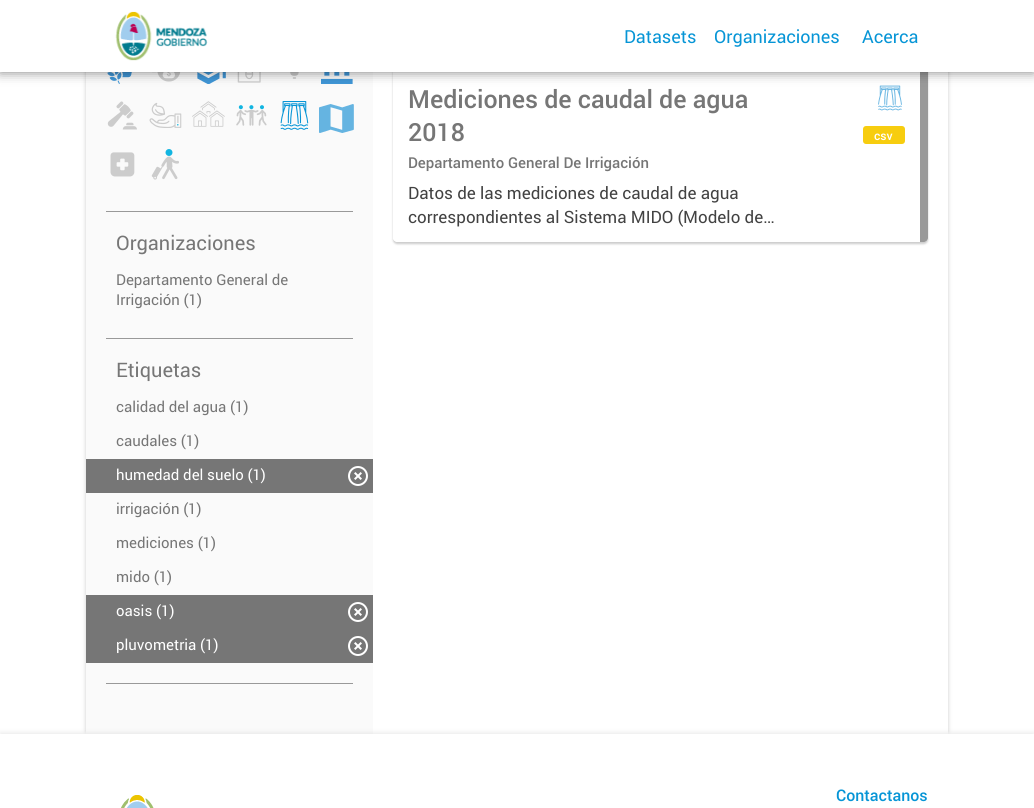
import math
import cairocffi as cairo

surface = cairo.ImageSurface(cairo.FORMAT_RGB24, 1034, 808)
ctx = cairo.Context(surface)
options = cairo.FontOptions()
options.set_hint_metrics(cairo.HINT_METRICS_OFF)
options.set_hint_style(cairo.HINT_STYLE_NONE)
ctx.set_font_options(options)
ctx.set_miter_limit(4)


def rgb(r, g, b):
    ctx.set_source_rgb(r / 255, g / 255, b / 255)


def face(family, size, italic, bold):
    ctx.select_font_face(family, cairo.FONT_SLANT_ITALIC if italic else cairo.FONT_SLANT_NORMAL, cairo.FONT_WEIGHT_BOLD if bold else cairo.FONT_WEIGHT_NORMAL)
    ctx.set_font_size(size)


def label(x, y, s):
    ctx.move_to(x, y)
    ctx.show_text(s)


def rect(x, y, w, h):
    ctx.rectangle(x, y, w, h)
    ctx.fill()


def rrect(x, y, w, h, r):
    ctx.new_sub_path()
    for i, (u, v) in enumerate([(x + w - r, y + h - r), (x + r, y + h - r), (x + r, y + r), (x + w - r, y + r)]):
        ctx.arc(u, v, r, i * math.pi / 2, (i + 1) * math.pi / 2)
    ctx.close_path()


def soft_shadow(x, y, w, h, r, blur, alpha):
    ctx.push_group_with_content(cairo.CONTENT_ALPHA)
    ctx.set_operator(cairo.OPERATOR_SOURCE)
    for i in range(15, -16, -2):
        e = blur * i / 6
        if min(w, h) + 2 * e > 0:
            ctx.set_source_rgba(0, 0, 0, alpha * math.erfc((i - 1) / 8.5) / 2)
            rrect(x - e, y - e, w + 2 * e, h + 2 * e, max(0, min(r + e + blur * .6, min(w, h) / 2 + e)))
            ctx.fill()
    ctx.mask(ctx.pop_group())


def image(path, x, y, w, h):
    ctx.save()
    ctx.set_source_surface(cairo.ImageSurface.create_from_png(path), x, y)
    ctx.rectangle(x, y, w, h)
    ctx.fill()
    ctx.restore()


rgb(255, 255, 255)
ctx.paint()
ctx.save()
ctx.set_fill_rule(cairo.FILL_RULE_EVEN_ODD)
ctx.new_path()
ctx.move_to(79, 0)
ctx.line_to(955, 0)
ctx.line_to(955, 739)
ctx.line_to(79, 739)
ctx.close_path()
ctx.move_to(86, -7)
ctx.line_to(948, -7)
ctx.line_to(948, 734)
ctx.line_to(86, 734)
ctx.close_path()
ctx.clip()
rgb(150, 150, 150)
soft_shadow(86, -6, 862, 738, 0, 2, 0.5)
ctx.restore()
ctx.save()
ctx.set_fill_rule(cairo.FILL_RULE_EVEN_ODD)
ctx.new_path()
ctx.move_to(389, 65)
ctx.line_to(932, 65)
ctx.line_to(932, 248)
ctx.line_to(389, 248)
ctx.close_path()
ctx.move_to(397, 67)
ctx.line_to(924, 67)
ctx.curve_to(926, 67, 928, 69, 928, 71)
ctx.line_to(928, 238)
ctx.curve_to(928, 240, 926, 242, 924, 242)
ctx.line_to(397, 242)
ctx.curve_to(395, 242, 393, 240, 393, 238)
ctx.line_to(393, 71)
ctx.curve_to(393, 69, 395, 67, 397, 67)
ctx.close_path()
ctx.clip()
rgb(0, 0, 0)
soft_shadow(393, 69, 535, 175, 4, 1, 0.2)
ctx.restore()
rgb(153, 153, 153)
ctx.new_path()
ctx.move_to(920, 68)
ctx.line_to(920, 242)
ctx.line_to(924, 242)
ctx.curve_to(926, 242, 928, 240, 928, 238)
ctx.line_to(928, 71)
ctx.curve_to(928, 69, 926, 68, 924, 68)
ctx.close_path()
ctx.fill()
image('image1.png', 878, 85, 24, 26)
rgb(250, 250, 250)
rect(86, 72, 287, 662)
image('image2.png', 107, 72, 25, 12)
image('image3.png', 152, 72, 29, 10)
image('image4.png', 197, 72, 29, 12)
image('image5.png', 237, 72, 24, 11)
image('image6.png', 290, 72, 9, 7)
image('image7.png', 321, 72, 32, 12)
rgb(0, 0, 0)
soft_shadow(0, 0, 1034, 72, 0, 6, 0.5)
rgb(255, 255, 255)
rect(0, 0, 1034, 72)
image('image0.png', 115, 11, 93, 50)
face('Roboto', 18, 0, 0)
rgb(6, 149, 214)
label(624, 43, 'Datasets')
label(714, 43, 'Organizaciones')
label(862, 43, 'Acerca')
face('Roboto Medium', 25, 0, 0)
rgb(118, 118, 118)
label(408, 108, 'Mediciones de caudal de agua')
label(408, 141, '2018')
face('Roboto Medium', 15, 0, 0)
label(408, 168, 'Departamento General De Irrigación')
face('Roboto', 17, 0, 0)
rgb(66, 66, 66)
label(408, 199, 'Datos de las mediciones de caudal de agua')
label(408, 223, 'correspondientes al Sistema MIDO (Modelo de…')
rgb(247, 205, 15)
rrect(863, 126, 42, 18, 3)
ctx.fill()
face('Roboto Medium', 12, 0, 0)
rgb(255, 255, 255)
label(874, 140, 'csv')
image('image8.png', 107, 101, 30, 29)
image('image9.png', 149, 102, 33, 26)
image('image10.png', 192, 101, 33, 26)
image('image11.png', 236, 105, 31, 21)
image('image12.png', 280, 101, 29, 29)
image('image13.png', 319, 104, 35, 29)
image('image14.png', 110, 152, 25, 25)
image('image15.png', 151, 149, 28, 31)
rgb(153, 153, 153)
rect(106, 211, 247, 1)
face('Roboto', 20, 0, 0)
rgb(118, 118, 118)
label(116, 250, 'Organizaciones')
face('Roboto', 15, 0, 0)
label(116, 285, 'Departamento General de')
label(116, 305, 'Irrigación (1)')
rgb(153, 153, 153)
rect(106, 338, 247, 1)
face('Roboto', 20, 0, 0)
rgb(118, 118, 118)
label(116, 377, 'Etiquetas')
face('Roboto', 15, 0, 0)
label(116, 412, 'calidad del agua (1)')
label(116, 446, 'caudales (1)')
rect(86, 459, 287, 34)
rgb(255, 255, 255)
label(116, 480, 'humedad del suelo (1)')
image('image16.png', 348, 466, 20, 20)
rgb(118, 118, 118)
label(116, 514, 'irrigación (1)')
label(116, 548, 'mediciones (1)')
label(116, 582, 'mido (1)')
rect(86, 595, 287, 68)
rgb(255, 255, 255)
label(116, 616, 'oasis (1)')
image('image16.png', 348, 602, 20, 20)
label(116, 650, 'pluvometria (1)')
image('image16.png', 348, 636, 20, 20)
rgb(153, 153, 153)
rect(106, 683, 247, 1)
rgb(220, 220, 220)
soft_shadow(0, 732, 1034, 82, 0, 2, 0.5)
rgb(255, 255, 255)
rect(0, 734, 1034, 74)
image('image17.png', 121, 795, 33, 13)
face('Roboto Medium', 16, 0, 0)
rgb(6, 149, 214)
label(836, 801, 'Contactanos')
surface.write_to_png('render.png')
